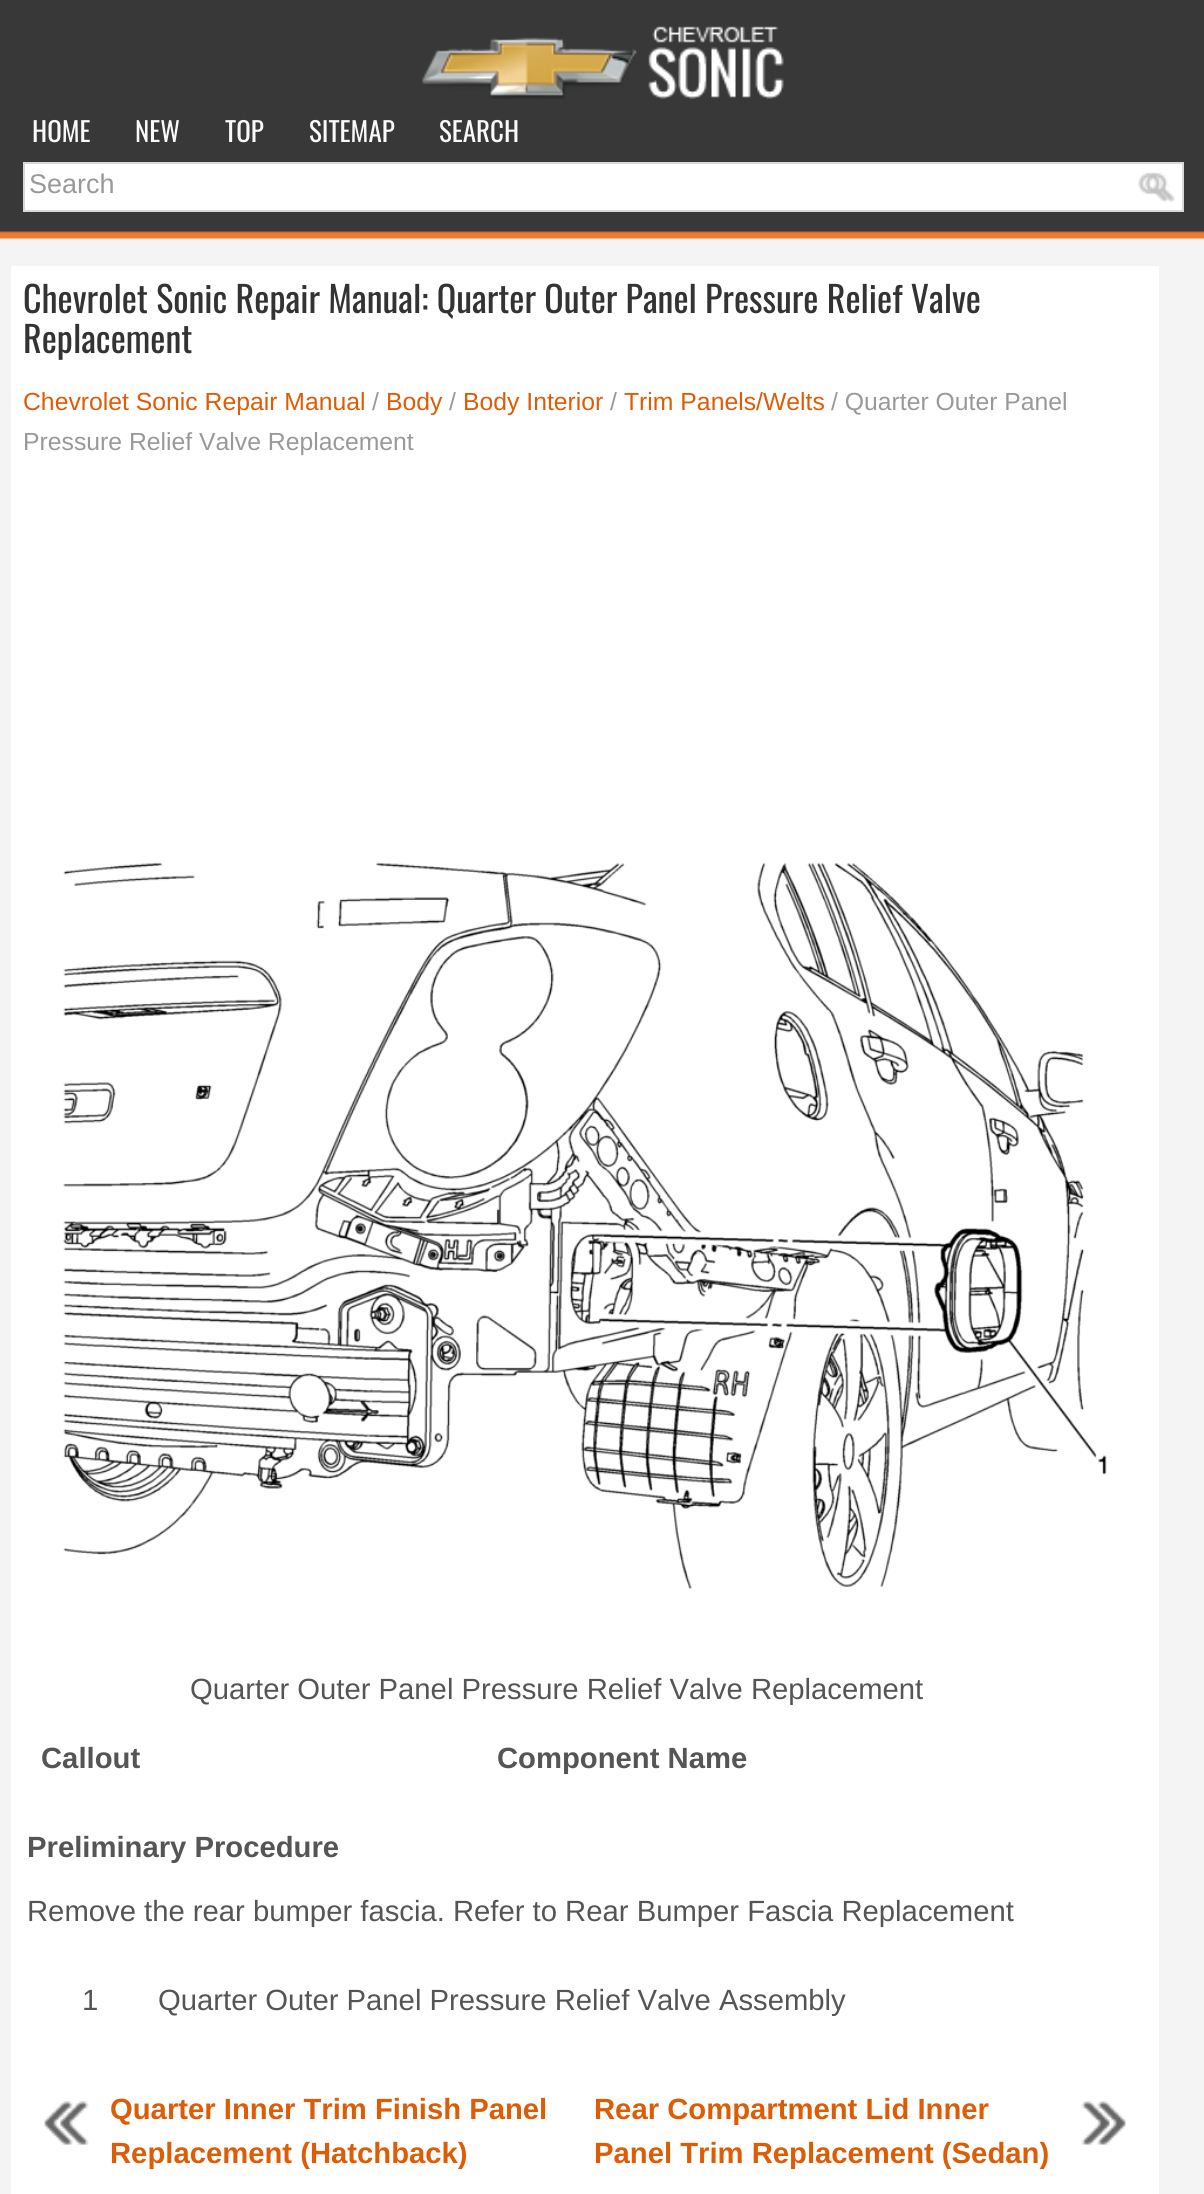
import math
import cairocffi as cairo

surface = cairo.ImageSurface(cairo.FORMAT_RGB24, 1204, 2194)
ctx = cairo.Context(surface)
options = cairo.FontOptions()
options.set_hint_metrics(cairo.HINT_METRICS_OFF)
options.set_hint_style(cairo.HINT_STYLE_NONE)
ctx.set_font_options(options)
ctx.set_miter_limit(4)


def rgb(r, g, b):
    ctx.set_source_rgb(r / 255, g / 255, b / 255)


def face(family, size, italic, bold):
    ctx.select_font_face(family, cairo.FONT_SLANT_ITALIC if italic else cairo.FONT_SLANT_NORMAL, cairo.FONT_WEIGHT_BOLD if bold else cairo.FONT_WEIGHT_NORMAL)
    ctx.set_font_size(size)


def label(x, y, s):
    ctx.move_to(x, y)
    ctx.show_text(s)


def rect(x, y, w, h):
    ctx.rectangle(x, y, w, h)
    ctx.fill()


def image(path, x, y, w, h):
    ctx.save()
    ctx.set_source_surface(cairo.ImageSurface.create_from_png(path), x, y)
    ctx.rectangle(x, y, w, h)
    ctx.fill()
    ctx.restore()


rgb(244, 244, 244)
ctx.paint()
image('image0.png', 0, 0, 1204, 239)
image('image1.png', 421, 26, 363, 73)
face('Oswald', 27, 0, 0)
rgb(249, 249, 249)
label(32, 142, 'HOME')
label(135, 142, 'NEW')
label(225, 142, 'TOP')
label(309, 142, 'SITEMAP')
label(439, 142, 'SEARCH')
rgb(255, 255, 255)
rect(25, 164, 1157, 46)
image('image2.png', 1138, 172, 31, 31)
ctx.rectangle(24, 163, 1159, 48)
rgb(216, 216, 216)
ctx.stroke()
face('Liberation Sans', 27, 0, 0)
rgb(153, 153, 153)
label(29, 193, 'Search')
image('image3.png', 1144, 172, 31, 31)
rgb(255, 255, 255)
rect(11, 266, 1148, 1928)
face('Oswald', 36, 0, 0)
rgb(51, 51, 51)
label(23, 313, 'Chevrolet Sonic Repair Manual: Quarter Outer Panel Pressure Relief Valve')
label(23, 353, 'Replacement')
face('Liberation Sans', 24.75, 0, 0)
rgb(222, 92, 6)
label(23, 410, 'Chevrolet Sonic Repair Manual')
rgb(153, 153, 153)
label(372, 410, '/')
rgb(222, 92, 6)
label(386, 410, 'Body')
rgb(153, 153, 153)
label(449, 410, '/')
rgb(222, 92, 6)
label(463, 410, 'Body Interior')
rgb(153, 153, 153)
label(610, 410, '/')
rgb(222, 92, 6)
label(624, 410, 'Trim Panels/Welts')
rgb(153, 153, 153)
label(831, 410, '/ Quarter Outer Panel')
label(23, 450, 'Pressure Relief Valve Replacement')
image('image4.png', 63, 862, 1044, 728)
face('Liberation Sans', 29.25, 0, 0)
rgb(85, 85, 85)
label(190, 1699, 'Quarter Outer Panel Pressure Relief Valve Replacement')
face('Liberation Sans', 29.25, 0, 1)
label(41, 1768, 'Callout')
label(497, 1768, 'Component Name')
label(27, 1857, 'Preliminary Procedure')
face('Liberation Sans', 29.25, 0, 0)
label(27, 1921, 'Remove the rear bumper fascia. Refer to Rear Bumper Fascia Replacement')
label(82, 2010, '1')
label(158, 2010, 'Quarter Outer Panel Pressure Relief Valve Assembly')
image('image5.png', 44, 2101, 45, 44)
face('Liberation Sans', 29.25, 0, 1)
rgb(222, 92, 6)
label(110, 2119, 'Quarter Inner Trim Finish Panel')
label(110, 2163, 'Replacement (Hatchback)')
label(594, 2119, 'Rear Compartment Lid Inner')
image('image6.png', 1081, 2101, 45, 44)
label(594, 2163, 'Panel Trim Replacement (Sedan)')
surface.write_to_png('render.png')
